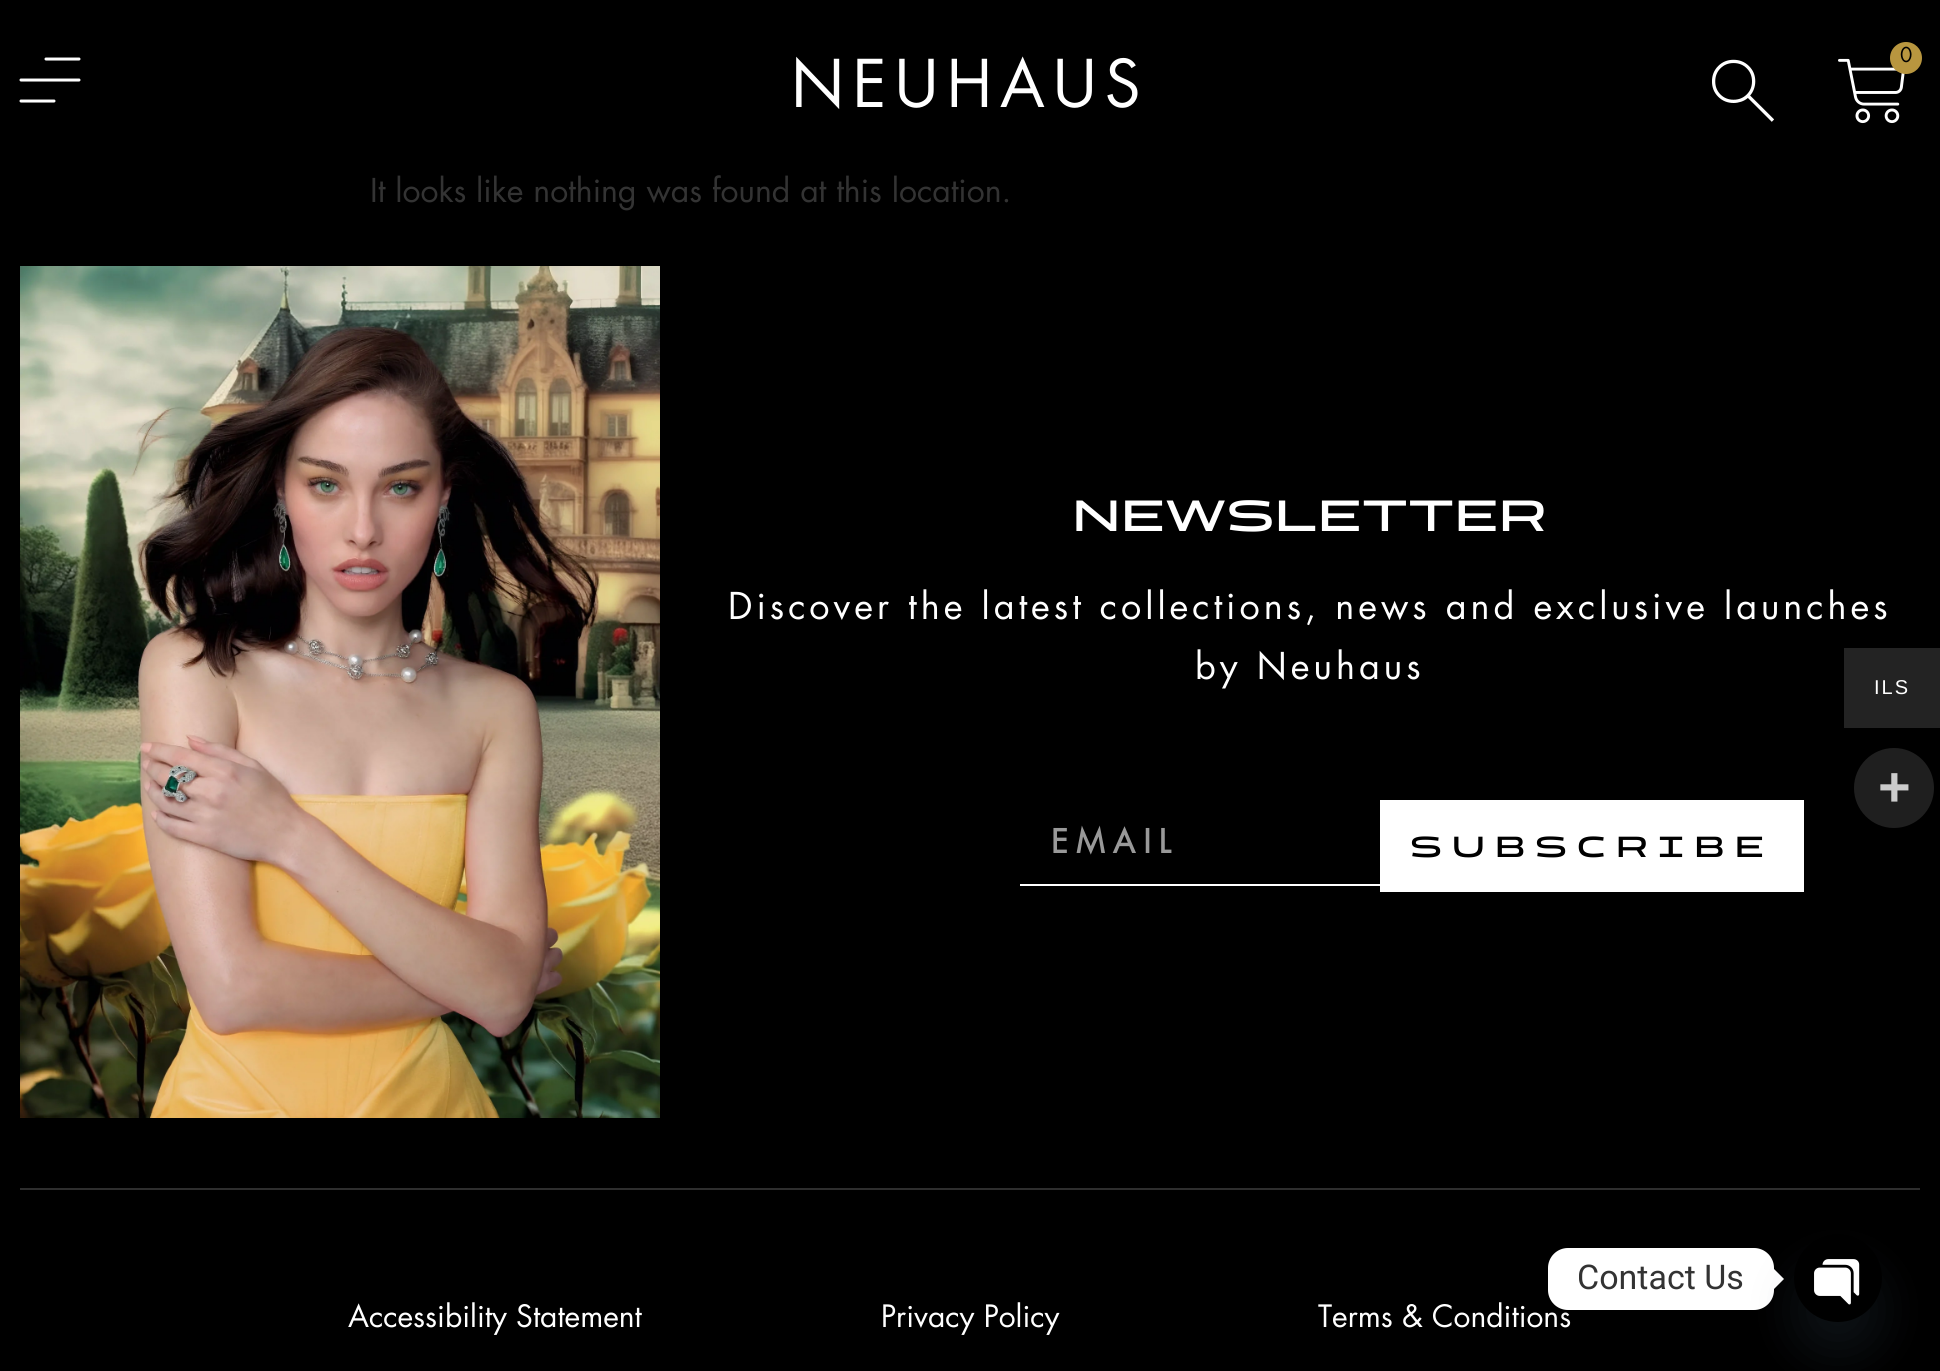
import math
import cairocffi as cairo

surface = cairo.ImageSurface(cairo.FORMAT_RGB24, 1940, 1371)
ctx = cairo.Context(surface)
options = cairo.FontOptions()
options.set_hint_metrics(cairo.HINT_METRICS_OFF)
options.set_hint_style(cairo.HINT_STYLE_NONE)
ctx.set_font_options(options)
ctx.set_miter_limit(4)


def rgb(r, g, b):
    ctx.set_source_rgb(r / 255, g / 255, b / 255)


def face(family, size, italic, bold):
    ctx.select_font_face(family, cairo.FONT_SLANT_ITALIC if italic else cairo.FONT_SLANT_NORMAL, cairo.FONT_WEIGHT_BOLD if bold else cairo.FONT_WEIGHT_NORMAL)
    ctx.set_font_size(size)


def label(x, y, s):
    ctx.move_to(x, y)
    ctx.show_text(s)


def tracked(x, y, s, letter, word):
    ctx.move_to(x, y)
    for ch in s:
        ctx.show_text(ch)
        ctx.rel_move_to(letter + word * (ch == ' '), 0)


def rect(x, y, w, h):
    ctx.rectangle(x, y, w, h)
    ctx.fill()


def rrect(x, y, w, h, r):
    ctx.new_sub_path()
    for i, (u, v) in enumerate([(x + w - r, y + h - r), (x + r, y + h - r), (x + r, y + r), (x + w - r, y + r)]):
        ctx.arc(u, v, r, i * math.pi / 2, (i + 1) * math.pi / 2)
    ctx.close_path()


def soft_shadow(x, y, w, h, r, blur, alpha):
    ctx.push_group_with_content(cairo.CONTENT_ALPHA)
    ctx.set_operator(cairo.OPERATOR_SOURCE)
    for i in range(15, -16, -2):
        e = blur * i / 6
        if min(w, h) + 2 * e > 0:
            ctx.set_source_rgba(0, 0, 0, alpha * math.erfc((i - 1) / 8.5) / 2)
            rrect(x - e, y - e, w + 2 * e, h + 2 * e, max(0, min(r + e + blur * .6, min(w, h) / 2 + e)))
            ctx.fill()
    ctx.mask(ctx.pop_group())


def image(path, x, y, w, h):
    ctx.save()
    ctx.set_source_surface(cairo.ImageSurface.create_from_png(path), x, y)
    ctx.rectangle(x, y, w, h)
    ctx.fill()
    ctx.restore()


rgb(0, 0, 0)
ctx.paint()
ctx.new_path()
ctx.move_to(21, 101)
ctx.line_to(54, 101)
ctx.move_to(21, 80)
ctx.line_to(79, 80)
ctx.move_to(46, 59)
ctx.line_to(79, 59)
rgb(255, 255, 255)
ctx.set_line_width(3)
ctx.set_line_cap(cairo.LINE_CAP_ROUND)
ctx.set_line_join(cairo.LINE_JOIN_ROUND)
ctx.stroke()
face('Futura', 64, 0, 0)
tracked(791, 107, 'NEUHAUS', 8, 0)
image('image0.png', 1712, 59, 62, 63)
image('image1.png', 1838, 58, 67, 66)
rgb(184, 150, 63)
ctx.arc(1906, 58, 16, 0, 2 * math.pi)
ctx.fill()
face('Futura', 20, 0, 0)
rgb(0, 0, 0)
label(1900, 62, '0')
face('Futura', 32, 0, 0)
rgb(51, 51, 51)
label(370, 202, 'It looks like nothing was found at this location.')
image('image2.png', 20, 266, 640, 852)
face('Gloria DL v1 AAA', 48, 0, 0)
rgb(255, 255, 255)
label(1072, 531, 'NEWSLETTER')
face('Futura', 36, 0, 0)
tracked(728, 619, 'Discover the latest collections, news and exclusive launches', 4, 0)
tracked(1195, 679, 'by Neuhaus', 4, 0)
rect(1020, 884, 360, 2)
face('Futura', 32, 0, 1)
rgb(153, 153, 153)
tracked(1051, 853, 'EMAIL', 8, 0)
rgb(255, 255, 255)
rect(1380, 800, 424, 92)
face('Gloria DL v1 AAA', 32, 0, 0)
rgb(0, 0, 0)
tracked(1410, 857, 'SUBSCRIBE', 10, 0)
rgb(46, 46, 46)
rect(20, 1188, 1900, 2)
face('Futura', 30, 0, 0)
rgb(255, 255, 255)
label(348, 1327, 'Accessibility Statement')
label(881, 1327, 'Privacy Policy')
label(1318, 1327, 'Terms & Conditions')
rgb(35, 35, 35)
rect(1844, 648, 96, 80)
face('Liberation Sans', 20, 0, 0)
rgb(255, 255, 255)
tracked(1874, 694, 'ILS', 2, 0)
rgb(31, 31, 31)
ctx.new_path()
ctx.arc(1894, 788, 40, 0, 2 * math.pi)
ctx.fill()
face('Liberation Sans', 56, 0, 1)
rgb(204, 204, 204)
label(1878, 806, '+')
rgb(0, 0, 0)
soft_shadow(1548, 1250, 226, 62, 20, 7.5, 0.15)
rgb(255, 255, 255)
rrect(1548, 1248, 226, 62, 20)
ctx.fill()
face('Roboto', 34, 0, 0)
rgb(51, 51, 51)
label(1577, 1289, 'Contact Us')
rgb(255, 255, 255)
ctx.new_path()
ctx.move_to(1774, 1289)
ctx.line_to(1774, 1269)
ctx.line_to(1784, 1279)
ctx.close_path()
ctx.fill()
rgb(73, 104, 126)
soft_shadow(1794, 1266, 88, 88, 44, 24, 0.16)
rgb(0, 0, 0)
ctx.arc(1838, 1278, 44, 0, 2 * math.pi)
ctx.fill()
image('image3.png', 1814, 1259, 46, 46)
surface.write_to_png('render.png')
